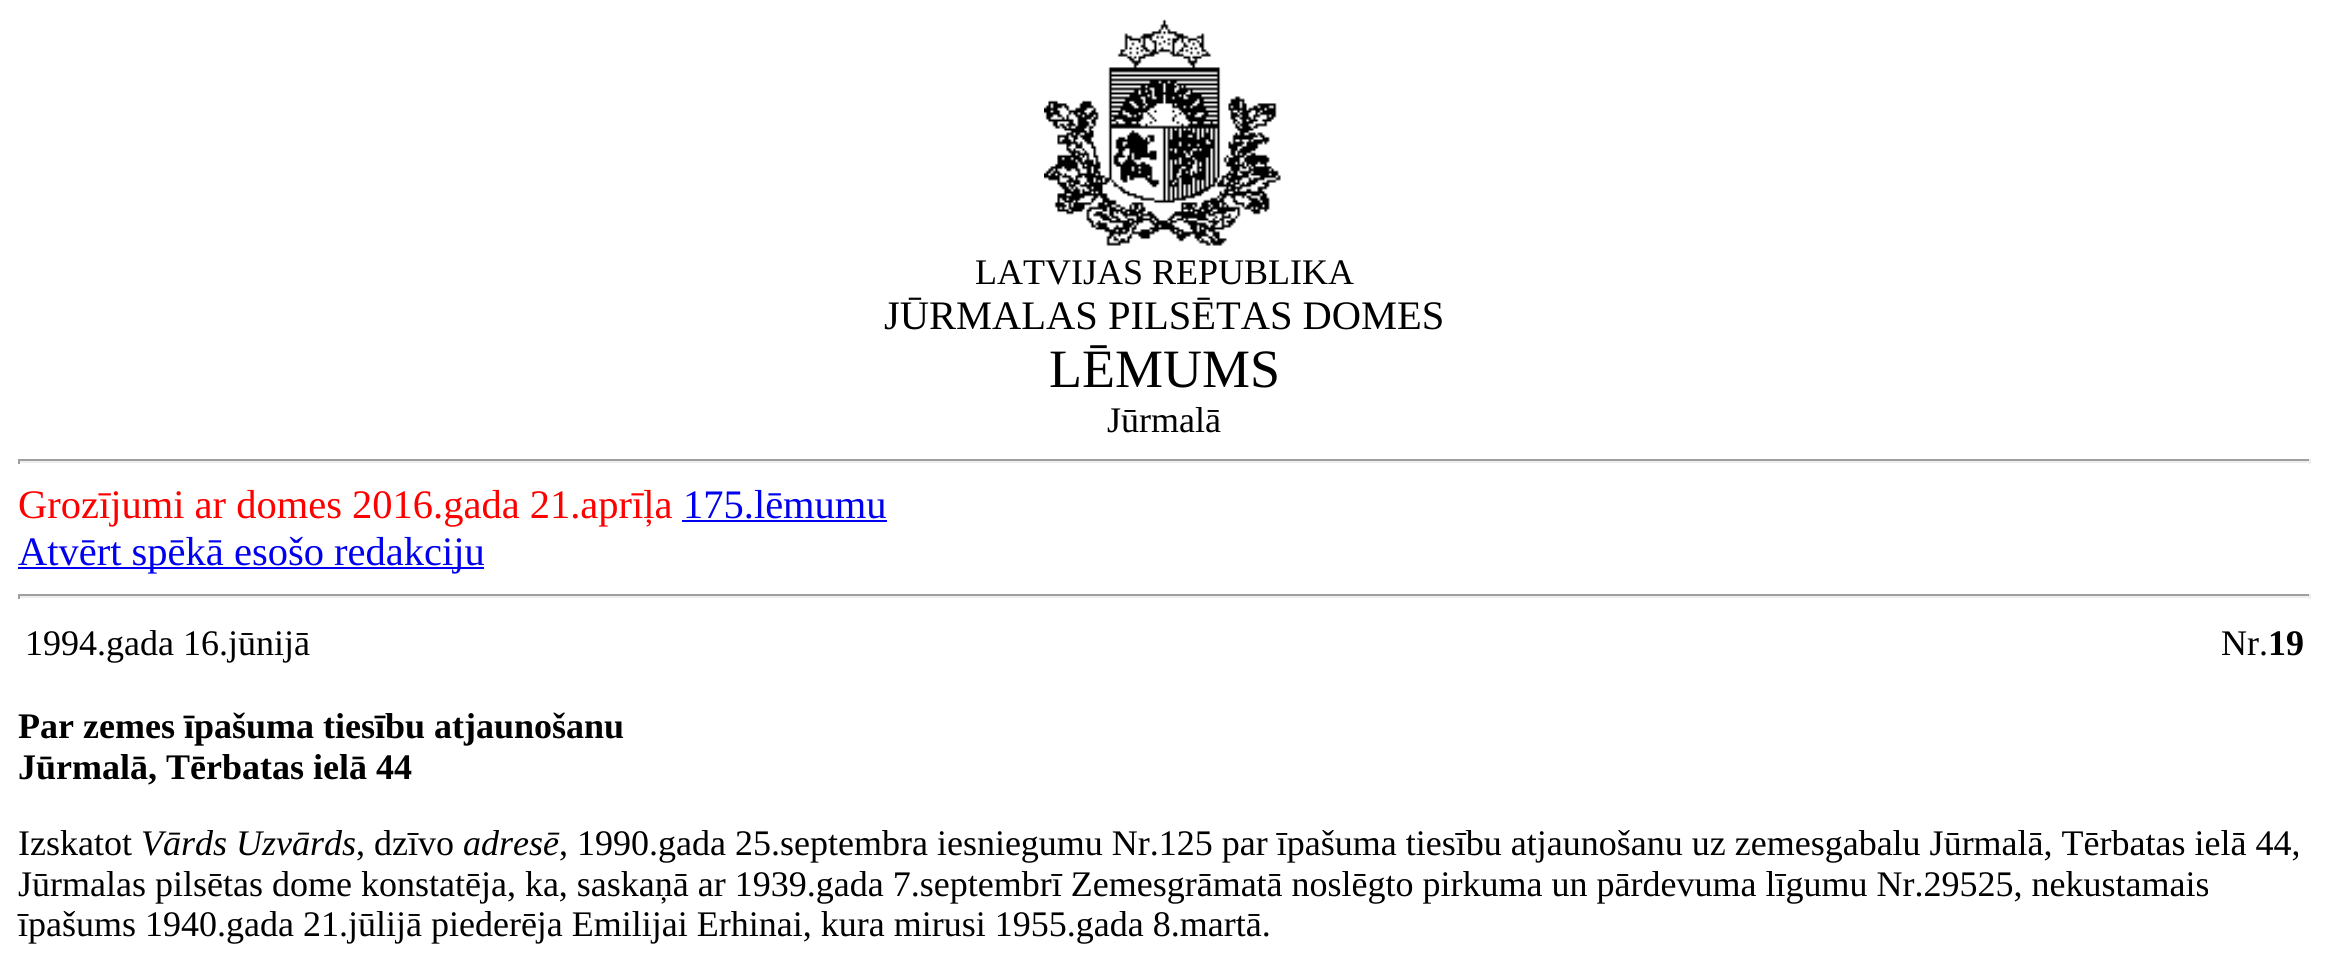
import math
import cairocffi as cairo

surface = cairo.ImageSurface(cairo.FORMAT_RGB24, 2328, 977)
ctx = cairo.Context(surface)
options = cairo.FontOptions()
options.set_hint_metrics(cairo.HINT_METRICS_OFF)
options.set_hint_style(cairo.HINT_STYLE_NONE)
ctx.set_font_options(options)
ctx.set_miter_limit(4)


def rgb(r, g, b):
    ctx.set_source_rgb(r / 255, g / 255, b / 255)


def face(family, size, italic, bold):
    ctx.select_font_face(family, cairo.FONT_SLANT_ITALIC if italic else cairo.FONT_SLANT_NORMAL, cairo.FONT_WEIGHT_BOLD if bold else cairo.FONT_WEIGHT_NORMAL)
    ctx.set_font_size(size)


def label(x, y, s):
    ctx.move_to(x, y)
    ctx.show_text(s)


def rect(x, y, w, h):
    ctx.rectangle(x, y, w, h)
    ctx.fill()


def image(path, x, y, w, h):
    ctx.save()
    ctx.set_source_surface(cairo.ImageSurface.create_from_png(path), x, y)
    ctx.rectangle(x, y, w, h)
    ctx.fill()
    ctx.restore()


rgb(255, 255, 255)
ctx.paint()
image('image0.png', 1044, 19, 237, 227)
face('Liberation Serif', 36, 0, 0)
rgb(0, 0, 0)
label(975, 284, 'LATVIJAS REPUBLIKA')
face('Liberation Serif', 40.5, 0, 0)
label(884, 329, 'JŪRMALAS PILSĒTAS DOMES')
face('Liberation Serif', 54, 0, 0)
label(1049, 387, 'LĒMUMS')
face('Liberation Serif', 36, 0, 0)
label(1107, 432, 'Jūrmalā')
rgb(159, 159, 159)
rect(18, 459, 2293, 2)
rgb(238, 238, 238)
rect(2309, 459, 2, 5)
rect(18, 461, 2293, 2)
rgb(159, 159, 159)
rect(18, 459, 2, 5)
face('Liberation Serif', 40.5, 0, 0)
rgb(255, 0, 0)
label(18, 518, 'Grozījumi ar domes 2016.gada 21.aprīļa')
rgb(0, 0, 238)
label(683, 518, '175.lēmumu')
rect(682, 520, 205, 2)
rect(18, 567, 466, 2)
label(18, 565, 'Atvērt spēkā esošo redakciju')
rgb(159, 159, 159)
rect(18, 594, 2293, 2)
rgb(238, 238, 238)
rect(2309, 594, 2, 5)
rect(18, 596, 2293, 2)
rgb(159, 159, 159)
rect(18, 594, 2, 5)
face('Liberation Serif', 36, 0, 0)
rgb(0, 0, 0)
label(25, 655, '1994.gada 16.jūnijā')
label(2221, 655, 'Nr.')
face('Liberation Serif', 36, 0, 1)
label(2268, 655, '19')
label(18, 738, 'Par zemes īpašuma tiesību atjaunošanu')
label(18, 779, 'Jūrmalā, Tērbatas ielā 44')
face('Liberation Serif', 36, 0, 0)
label(18, 855, 'Izskatot')
face('Liberation Serif', 36, 1, 0)
label(141, 855, 'Vārds Uzvārds')
face('Liberation Serif', 36, 0, 0)
label(356, 855, ', dzīvo')
face('Liberation Serif', 36, 1, 0)
label(463, 855, 'adresē')
face('Liberation Serif', 36, 0, 0)
label(559, 855, ', 1990.gada 25.septembra iesniegumu Nr.125 par īpašuma tiesību atjaunošanu uz zemesgabalu Jūrmalā, Tērbatas ielā 44,')
label(18, 896, 'Jūrmalas pilsētas dome konstatēja, ka, saskaņā ar 1939.gada 7.septembrī Zemesgrāmatā noslēgto pirkuma un pārdevuma līgumu Nr.29525, nekustamais')
label(18, 936, 'īpašums 1940.gada 21.jūlijā piederēja Emilijai Erhinai, kura mirusi 1955.gada 8.martā.')
surface.write_to_png('render.png')
